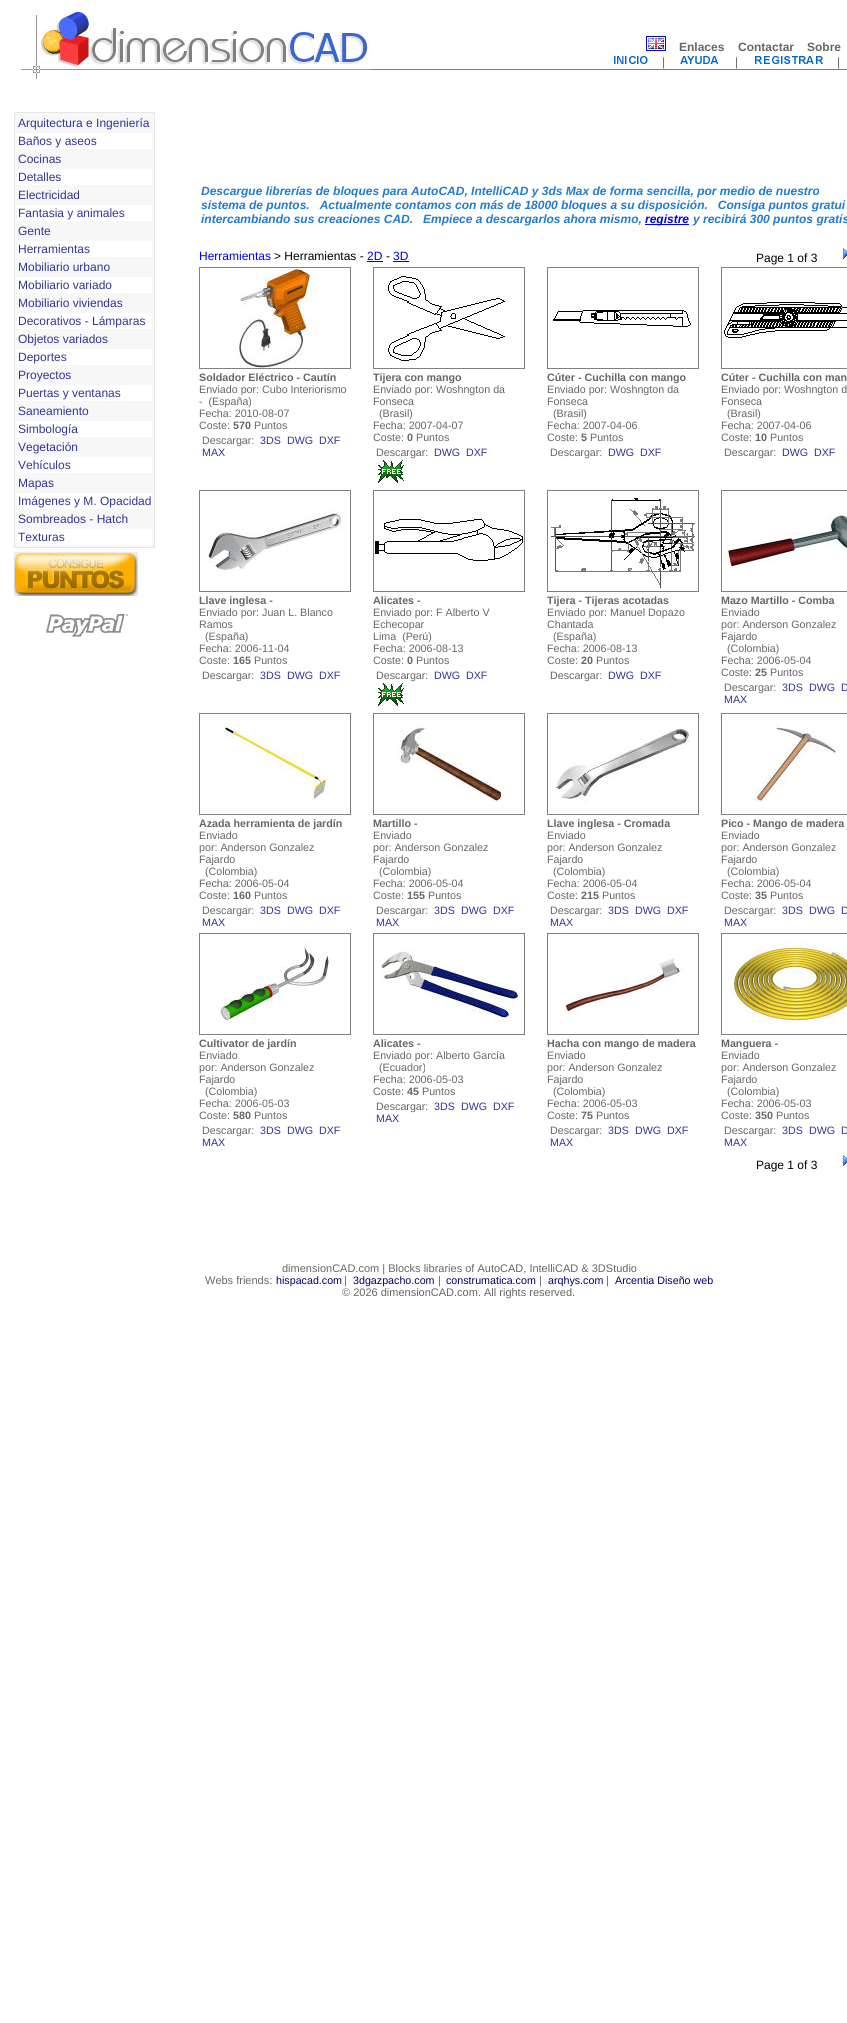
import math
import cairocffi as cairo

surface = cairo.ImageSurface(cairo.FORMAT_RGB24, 847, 2023)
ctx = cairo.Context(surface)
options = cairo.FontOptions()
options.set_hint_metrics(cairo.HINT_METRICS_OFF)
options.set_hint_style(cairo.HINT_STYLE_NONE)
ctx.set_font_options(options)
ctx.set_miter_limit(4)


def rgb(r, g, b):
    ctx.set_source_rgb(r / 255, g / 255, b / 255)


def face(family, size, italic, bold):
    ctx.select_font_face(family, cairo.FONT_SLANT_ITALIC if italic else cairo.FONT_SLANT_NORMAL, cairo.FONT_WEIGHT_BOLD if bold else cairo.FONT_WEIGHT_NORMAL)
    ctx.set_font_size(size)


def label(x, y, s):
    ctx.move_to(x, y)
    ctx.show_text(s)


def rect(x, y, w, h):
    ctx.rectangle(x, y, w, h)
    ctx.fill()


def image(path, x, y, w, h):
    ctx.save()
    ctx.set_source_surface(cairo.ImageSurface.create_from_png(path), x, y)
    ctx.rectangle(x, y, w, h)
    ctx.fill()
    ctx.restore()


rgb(255, 255, 255)
ctx.paint()
rgb(125, 125, 125)
rect(371, 69, 476, 1)
image('image0.png', 21, 11, 350, 68)
ctx.rectangle(646.5, 36.5, 19, 14)
rgb(0, 0, 238)
ctx.set_line_width(1)
ctx.stroke()
image('image1.png', 648, 38, 16, 11)
face('Liberation Sans', 12, 0, 1)
rgb(102, 102, 102)
label(679, 51, 'Enlaces')
label(738, 51, 'Contactar')
label(807, 51, 'Sobre')
image('image2.png', 614, 56, 34, 8)
face('Liberation Sans', 12, 0, 0)
label(662, 66, '|')
image('image3.png', 680, 56, 39, 8)
label(735, 66, '|')
image('image4.png', 755, 56, 69, 8)
label(837, 66, '|')
rgb(247, 247, 247)
ctx.rectangle(14.5, 112.5, 140, 435)
ctx.fill_preserve()
rgb(230, 230, 230)
ctx.stroke()
rgb(51, 51, 153)
label(18, 127, 'Arquitectura e Ingeniería')
rgb(255, 255, 255)
rect(17, 133, 135, 16)
rgb(51, 51, 153)
label(18, 145, 'Baños y aseos')
label(18, 163, 'Cocinas')
rgb(255, 255, 255)
rect(17, 169, 135, 16)
rgb(51, 51, 153)
label(18, 181, 'Detalles')
label(18, 199, 'Electricidad')
rgb(255, 255, 255)
rect(17, 205, 135, 16)
rgb(51, 51, 153)
label(18, 217, 'Fantasia y animales')
label(18, 235, 'Gente')
rgb(255, 255, 255)
rect(17, 241, 135, 16)
rgb(51, 51, 153)
label(18, 253, 'Herramientas')
label(18, 271, 'Mobiliario urbano')
rgb(255, 255, 255)
rect(17, 277, 135, 16)
rgb(51, 51, 153)
label(18, 289, 'Mobiliario variado')
label(18, 307, 'Mobiliario viviendas')
rgb(255, 255, 255)
rect(17, 313, 135, 16)
rgb(51, 51, 153)
label(18, 325, 'Decorativos - Lámparas')
label(18, 343, 'Objetos variados')
rgb(255, 255, 255)
rect(17, 349, 135, 16)
rgb(51, 51, 153)
label(18, 361, 'Deportes')
label(18, 379, 'Proyectos')
rgb(255, 255, 255)
rect(17, 385, 135, 16)
rgb(51, 51, 153)
label(18, 397, 'Puertas y ventanas')
label(18, 415, 'Saneamiento')
rgb(255, 255, 255)
rect(17, 421, 135, 16)
rgb(51, 51, 153)
label(18, 433, 'Simbología')
label(18, 451, 'Vegetación')
rgb(255, 255, 255)
rect(17, 457, 135, 16)
rgb(51, 51, 153)
label(18, 469, 'Vehículos')
label(18, 487, 'Mapas')
rgb(255, 255, 255)
rect(17, 493, 135, 16)
rgb(51, 51, 153)
label(18, 505, 'Imágenes y M. Opacidad')
label(18, 523, 'Sombreados - Hatch')
rgb(255, 255, 255)
rect(17, 529, 135, 16)
rgb(51, 51, 153)
label(18, 541, 'Texturas')
image('image5.png', 14, 552, 124, 44)
image('image6.png', 46, 614, 82, 23)
face('Liberation Sans', 12, 1, 1)
rgb(33, 122, 211)
label(201, 195, 'Descargue librerías de bloques para AutoCAD, IntelliCAD y 3ds Max de forma sencilla, por medio de nuestro')
label(201, 209, 'sistema de puntos.   Actualmente contamos con más de 18000 bloques a su disposición.   Consiga puntos gratui')
label(201, 223, 'intercambiando sus creaciones CAD.   Empiece a descargarlos ahora mismo,')
rgb(0, 0, 238)
rect(645, 224, 44, 1)
label(645, 223, 'registre')
rgb(33, 122, 211)
label(693, 223, 'y recibirá 300 puntos gratis')
face('Liberation Sans', 12, 0, 0)
rgb(0, 0, 238)
label(199, 260, 'Herramientas')
rgb(0, 0, 0)
label(274, 260, '> Herramientas -')
rgb(0, 0, 238)
label(367, 260, '2D')
rect(367, 261, 16, 1)
rgb(0, 0, 0)
label(386, 260, '-')
rgb(0, 0, 238)
label(393, 260, '3D')
rect(393, 261, 16, 1)
rgb(0, 0, 0)
label(756, 262, 'Page 1 of 3')
image('image7.png', 843, 248, 4, 11)
ctx.rectangle(199.5, 267.5, 151, 101)
rgb(128, 128, 128)
ctx.stroke()
image('image8.png', 235, 268, 77, 100)
face('Liberation Sans', 10.7, 0, 1)
rgb(102, 102, 102)
label(199, 381, 'Soldador Eléctrico - Cautín')
face('Liberation Sans', 10.7, 0, 0)
label(199, 393, 'Enviado por: Cubo Interiorismo')
label(199, 405, '-  (España)')
label(199, 417, 'Fecha: 2010-08-07')
label(199, 429, 'Coste:')
face('Liberation Sans', 10.7, 0, 1)
label(233, 429, '570')
face('Liberation Sans', 10.7, 0, 0)
label(254, 429, 'Puntos')
label(202, 444, 'Descargar:')
rgb(51, 51, 153)
label(260, 444, '3DS')
label(287, 444, 'DWG')
label(319, 444, 'DXF')
label(202, 456, 'MAX')
ctx.rectangle(373.5, 267.5, 151, 101)
rgb(128, 128, 128)
ctx.stroke()
image('image9.png', 388, 276, 117, 85)
face('Liberation Sans', 10.7, 0, 1)
rgb(102, 102, 102)
label(373, 381, 'Tijera con mango')
face('Liberation Sans', 10.7, 0, 0)
label(373, 393, 'Enviado por: Woshngton da')
label(373, 405, 'Fonseca')
label(379, 417, '(Brasil)')
label(373, 429, 'Fecha: 2007-04-07')
label(373, 441, 'Coste:')
face('Liberation Sans', 10.7, 0, 1)
label(407, 441, '0')
face('Liberation Sans', 10.7, 0, 0)
label(416, 441, 'Puntos')
label(376, 456, 'Descargar:')
rgb(51, 51, 153)
label(434, 456, 'DWG')
label(466, 456, 'DXF')
image('image10.png', 378, 460, 26, 23)
ctx.rectangle(547.5, 267.5, 151, 101)
rgb(128, 128, 128)
ctx.stroke()
image('image11.png', 553, 310, 138, 17)
face('Liberation Sans', 10.7, 0, 1)
rgb(102, 102, 102)
label(547, 381, 'Cúter - Cuchilla con mango')
face('Liberation Sans', 10.7, 0, 0)
label(547, 393, 'Enviado por: Woshngton da')
label(547, 405, 'Fonseca')
label(553, 417, '(Brasil)')
label(547, 429, 'Fecha: 2007-04-06')
label(547, 441, 'Coste:')
face('Liberation Sans', 10.7, 0, 1)
label(581, 441, '5')
face('Liberation Sans', 10.7, 0, 0)
label(590, 441, 'Puntos')
label(550, 456, 'Descargar:')
rgb(51, 51, 153)
label(608, 456, 'DWG')
label(640, 456, 'DXF')
ctx.rectangle(721.5, 267.5, 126, 101)
rgb(128, 128, 128)
ctx.stroke()
image('image12.png', 724, 302, 123, 36)
face('Liberation Sans', 10.7, 0, 1)
rgb(102, 102, 102)
label(721, 381, 'Cúter - Cuchilla con man')
face('Liberation Sans', 10.7, 0, 0)
label(721, 393, 'Enviado por: Woshngton d')
label(721, 405, 'Fonseca')
label(727, 417, '(Brasil)')
label(721, 429, 'Fecha: 2007-04-06')
label(721, 441, 'Coste:')
face('Liberation Sans', 10.7, 0, 1)
label(755, 441, '10')
face('Liberation Sans', 10.7, 0, 0)
label(770, 441, 'Puntos')
label(724, 456, 'Descargar:')
rgb(51, 51, 153)
label(782, 456, 'DWG')
label(814, 456, 'DXF')
ctx.rectangle(199.5, 490.5, 151, 101)
rgb(128, 128, 128)
ctx.stroke()
image('image13.png', 208, 508, 136, 63)
face('Liberation Sans', 10.7, 0, 1)
rgb(102, 102, 102)
label(199, 604, 'Llave inglesa -')
face('Liberation Sans', 10.7, 0, 0)
label(199, 616, 'Enviado por: Juan L. Blanco')
label(199, 628, 'Ramos')
label(205, 640, '(España)')
label(199, 652, 'Fecha: 2006-11-04')
label(199, 664, 'Coste:')
face('Liberation Sans', 10.7, 0, 1)
label(233, 664, '165')
face('Liberation Sans', 10.7, 0, 0)
label(254, 664, 'Puntos')
label(202, 679, 'Descargar:')
rgb(51, 51, 153)
label(260, 679, '3DS')
label(287, 679, 'DWG')
label(319, 679, 'DXF')
ctx.rectangle(373.5, 490.5, 151, 101)
rgb(128, 128, 128)
ctx.stroke()
image('image14.png', 375, 519, 148, 42)
face('Liberation Sans', 10.7, 0, 1)
rgb(102, 102, 102)
label(373, 604, 'Alicates -')
face('Liberation Sans', 10.7, 0, 0)
label(373, 616, 'Enviado por: F Alberto V')
label(373, 628, 'Echecopar')
label(373, 640, 'Lima  (Perú)')
label(373, 652, 'Fecha: 2006-08-13')
label(373, 664, 'Coste:')
face('Liberation Sans', 10.7, 0, 1)
label(407, 664, '0')
face('Liberation Sans', 10.7, 0, 0)
label(416, 664, 'Puntos')
label(376, 679, 'Descargar:')
rgb(51, 51, 153)
label(434, 679, 'DWG')
label(466, 679, 'DXF')
image('image10.png', 378, 683, 26, 23)
ctx.rectangle(547.5, 490.5, 151, 101)
rgb(128, 128, 128)
ctx.stroke()
image('image15.png', 551, 498, 144, 90)
face('Liberation Sans', 10.7, 0, 1)
rgb(102, 102, 102)
label(547, 604, 'Tijera - Tijeras acotadas')
face('Liberation Sans', 10.7, 0, 0)
label(547, 616, 'Enviado por: Manuel Dopazo')
label(547, 628, 'Chantada')
label(553, 640, '(España)')
label(547, 652, 'Fecha: 2006-08-13')
label(547, 664, 'Coste:')
face('Liberation Sans', 10.7, 0, 1)
label(581, 664, '20')
face('Liberation Sans', 10.7, 0, 0)
label(596, 664, 'Puntos')
label(550, 679, 'Descargar:')
rgb(51, 51, 153)
label(608, 679, 'DWG')
label(640, 679, 'DXF')
ctx.rectangle(721.5, 490.5, 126, 101)
rgb(128, 128, 128)
ctx.stroke()
image('image16.png', 722, 515, 125, 56)
face('Liberation Sans', 10.7, 0, 1)
rgb(102, 102, 102)
label(721, 604, 'Mazo Martillo - Comba')
face('Liberation Sans', 10.7, 0, 0)
label(721, 616, 'Enviado')
label(721, 628, 'por: Anderson Gonzalez')
label(721, 640, 'Fajardo')
label(727, 652, '(Colombia)')
label(721, 664, 'Fecha: 2006-05-04')
label(721, 676, 'Coste:')
face('Liberation Sans', 10.7, 0, 1)
label(755, 676, '25')
face('Liberation Sans', 10.7, 0, 0)
label(770, 676, 'Puntos')
label(724, 691, 'Descargar:')
rgb(51, 51, 153)
label(782, 691, '3DS')
label(809, 691, 'DWG')
label(841, 691, 'D')
label(724, 703, 'MAX')
ctx.rectangle(199.5, 713.5, 151, 101)
rgb(128, 128, 128)
ctx.stroke()
image('image17.png', 224, 722, 104, 80)
face('Liberation Sans', 10.7, 0, 1)
rgb(102, 102, 102)
label(199, 827, 'Azada herramienta de jardín')
face('Liberation Sans', 10.7, 0, 0)
label(199, 839, 'Enviado')
label(199, 851, 'por: Anderson Gonzalez')
label(199, 863, 'Fajardo')
label(205, 875, '(Colombia)')
label(199, 887, 'Fecha: 2006-05-04')
label(199, 899, 'Coste:')
face('Liberation Sans', 10.7, 0, 1)
label(233, 899, '160')
face('Liberation Sans', 10.7, 0, 0)
label(254, 899, 'Puntos')
label(202, 914, 'Descargar:')
rgb(51, 51, 153)
label(260, 914, '3DS')
label(287, 914, 'DWG')
label(319, 914, 'DXF')
label(202, 926, 'MAX')
ctx.rectangle(373.5, 713.5, 151, 101)
rgb(128, 128, 128)
ctx.stroke()
image('image18.png', 398, 723, 104, 79)
face('Liberation Sans', 10.7, 0, 1)
rgb(102, 102, 102)
label(373, 827, 'Martillo -')
face('Liberation Sans', 10.7, 0, 0)
label(373, 839, 'Enviado')
label(373, 851, 'por: Anderson Gonzalez')
label(373, 863, 'Fajardo')
label(379, 875, '(Colombia)')
label(373, 887, 'Fecha: 2006-05-04')
label(373, 899, 'Coste:')
face('Liberation Sans', 10.7, 0, 1)
label(407, 899, '155')
face('Liberation Sans', 10.7, 0, 0)
label(428, 899, 'Puntos')
label(376, 914, 'Descargar:')
rgb(51, 51, 153)
label(434, 914, '3DS')
label(461, 914, 'DWG')
label(493, 914, 'DXF')
label(376, 926, 'MAX')
ctx.rectangle(547.5, 713.5, 151, 101)
rgb(128, 128, 128)
ctx.stroke()
image('image19.png', 556, 727, 136, 75)
face('Liberation Sans', 10.7, 0, 1)
rgb(102, 102, 102)
label(547, 827, 'Llave inglesa - Cromada')
face('Liberation Sans', 10.7, 0, 0)
label(547, 839, 'Enviado')
label(547, 851, 'por: Anderson Gonzalez')
label(547, 863, 'Fajardo')
label(553, 875, '(Colombia)')
label(547, 887, 'Fecha: 2006-05-04')
label(547, 899, 'Coste:')
face('Liberation Sans', 10.7, 0, 1)
label(581, 899, '215')
face('Liberation Sans', 10.7, 0, 0)
label(602, 899, 'Puntos')
label(550, 914, 'Descargar:')
rgb(51, 51, 153)
label(608, 914, '3DS')
label(635, 914, 'DWG')
label(667, 914, 'DXF')
label(550, 926, 'MAX')
ctx.rectangle(721.5, 713.5, 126, 101)
rgb(128, 128, 128)
ctx.stroke()
image('image20.png', 754, 722, 87, 80)
face('Liberation Sans', 10.7, 0, 1)
rgb(102, 102, 102)
label(721, 827, 'Pico - Mango de madera')
face('Liberation Sans', 10.7, 0, 0)
label(721, 839, 'Enviado')
label(721, 851, 'por: Anderson Gonzalez')
label(721, 863, 'Fajardo')
label(727, 875, '(Colombia)')
label(721, 887, 'Fecha: 2006-05-04')
label(721, 899, 'Coste:')
face('Liberation Sans', 10.7, 0, 1)
label(755, 899, '35')
face('Liberation Sans', 10.7, 0, 0)
label(770, 899, 'Puntos')
label(724, 914, 'Descargar:')
rgb(51, 51, 153)
label(782, 914, '3DS')
label(809, 914, 'DWG')
label(841, 914, 'D')
label(724, 926, 'MAX')
ctx.rectangle(199.5, 933.5, 151, 101)
rgb(128, 128, 128)
ctx.stroke()
image('image21.png', 216, 942, 118, 80)
face('Liberation Sans', 10.7, 0, 1)
rgb(102, 102, 102)
label(199, 1047, 'Cultivator de jardín')
face('Liberation Sans', 10.7, 0, 0)
label(199, 1059, 'Enviado')
label(199, 1071, 'por: Anderson Gonzalez')
label(199, 1083, 'Fajardo')
label(205, 1095, '(Colombia)')
label(199, 1107, 'Fecha: 2006-05-03')
label(199, 1119, 'Coste:')
face('Liberation Sans', 10.7, 0, 1)
label(233, 1119, '580')
face('Liberation Sans', 10.7, 0, 0)
label(254, 1119, 'Puntos')
label(202, 1134, 'Descargar:')
rgb(51, 51, 153)
label(260, 1134, '3DS')
label(287, 1134, 'DWG')
label(319, 1134, 'DXF')
label(202, 1146, 'MAX')
ctx.rectangle(373.5, 933.5, 151, 101)
rgb(128, 128, 128)
ctx.stroke()
image('image22.png', 378, 950, 140, 72)
face('Liberation Sans', 10.7, 0, 1)
rgb(102, 102, 102)
label(373, 1047, 'Alicates -')
face('Liberation Sans', 10.7, 0, 0)
label(373, 1059, 'Enviado por: Alberto García')
label(379, 1071, '(Ecuador)')
label(373, 1083, 'Fecha: 2006-05-03')
label(373, 1095, 'Coste:')
face('Liberation Sans', 10.7, 0, 1)
label(407, 1095, '45')
face('Liberation Sans', 10.7, 0, 0)
label(422, 1095, 'Puntos')
label(376, 1110, 'Descargar:')
rgb(51, 51, 153)
label(434, 1110, '3DS')
label(461, 1110, 'DWG')
label(493, 1110, 'DXF')
label(376, 1122, 'MAX')
ctx.rectangle(547.5, 933.5, 151, 101)
rgb(128, 128, 128)
ctx.stroke()
image('image23.png', 564, 958, 120, 56)
face('Liberation Sans', 10.7, 0, 1)
rgb(102, 102, 102)
label(547, 1047, 'Hacha con mango de madera')
face('Liberation Sans', 10.7, 0, 0)
label(547, 1059, 'Enviado')
label(547, 1071, 'por: Anderson Gonzalez')
label(547, 1083, 'Fajardo')
label(553, 1095, '(Colombia)')
label(547, 1107, 'Fecha: 2006-05-03')
label(547, 1119, 'Coste:')
face('Liberation Sans', 10.7, 0, 1)
label(581, 1119, '75')
face('Liberation Sans', 10.7, 0, 0)
label(596, 1119, 'Puntos')
label(550, 1134, 'Descargar:')
rgb(51, 51, 153)
label(608, 1134, '3DS')
label(635, 1134, 'DWG')
label(667, 1134, 'DXF')
label(550, 1146, 'MAX')
ctx.rectangle(721.5, 933.5, 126, 101)
rgb(128, 128, 128)
ctx.stroke()
image('image24.png', 730, 942, 117, 80)
face('Liberation Sans', 10.7, 0, 1)
rgb(102, 102, 102)
label(721, 1047, 'Manguera -')
face('Liberation Sans', 10.7, 0, 0)
label(721, 1059, 'Enviado')
label(721, 1071, 'por: Anderson Gonzalez')
label(721, 1083, 'Fajardo')
label(727, 1095, '(Colombia)')
label(721, 1107, 'Fecha: 2006-05-03')
label(721, 1119, 'Coste:')
face('Liberation Sans', 10.7, 0, 1)
label(755, 1119, '350')
face('Liberation Sans', 10.7, 0, 0)
label(776, 1119, 'Puntos')
label(724, 1134, 'Descargar:')
rgb(51, 51, 153)
label(782, 1134, '3DS')
label(809, 1134, 'DWG')
label(841, 1134, 'D')
label(724, 1146, 'MAX')
face('Liberation Sans', 12, 0, 0)
rgb(0, 0, 0)
label(756, 1169, 'Page 1 of 3')
image('image7.png', 843, 1155, 4, 11)
face('Liberation Sans', 11, 0, 0)
rgb(102, 102, 102)
label(282, 1272, 'dimensionCAD.com | Blocks libraries of AutoCAD, IntelliCAD & 3DStudio')
label(205, 1284, 'Webs friends:')
face('Liberation Sans', 10.7, 0, 0)
rgb(0, 0, 102)
label(276, 1284, 'hispacad.com')
face('Liberation Sans', 11, 0, 0)
rgb(102, 102, 102)
label(344, 1284, '|')
face('Liberation Sans', 10.7, 0, 0)
rgb(0, 0, 102)
label(353, 1284, '3dgazpacho.com')
face('Liberation Sans', 11, 0, 0)
rgb(102, 102, 102)
label(438, 1284, '|')
face('Liberation Sans', 10.7, 0, 0)
rgb(0, 0, 102)
label(446, 1284, 'construmatica.com')
face('Liberation Sans', 11, 0, 0)
rgb(102, 102, 102)
label(539, 1284, '|')
face('Liberation Sans', 10.7, 0, 0)
rgb(0, 0, 102)
label(548, 1284, 'arqhys.com')
face('Liberation Sans', 11, 0, 0)
rgb(102, 102, 102)
label(606, 1284, '|')
face('Liberation Sans', 10.7, 0, 0)
rgb(0, 0, 102)
label(615, 1284, 'Arcentia Diseño web')
face('Liberation Sans', 11, 0, 0)
rgb(102, 102, 102)
label(342, 1296, '© 2026 dimensionCAD.com. All rights reserved.')
surface.write_to_png('render.png')
